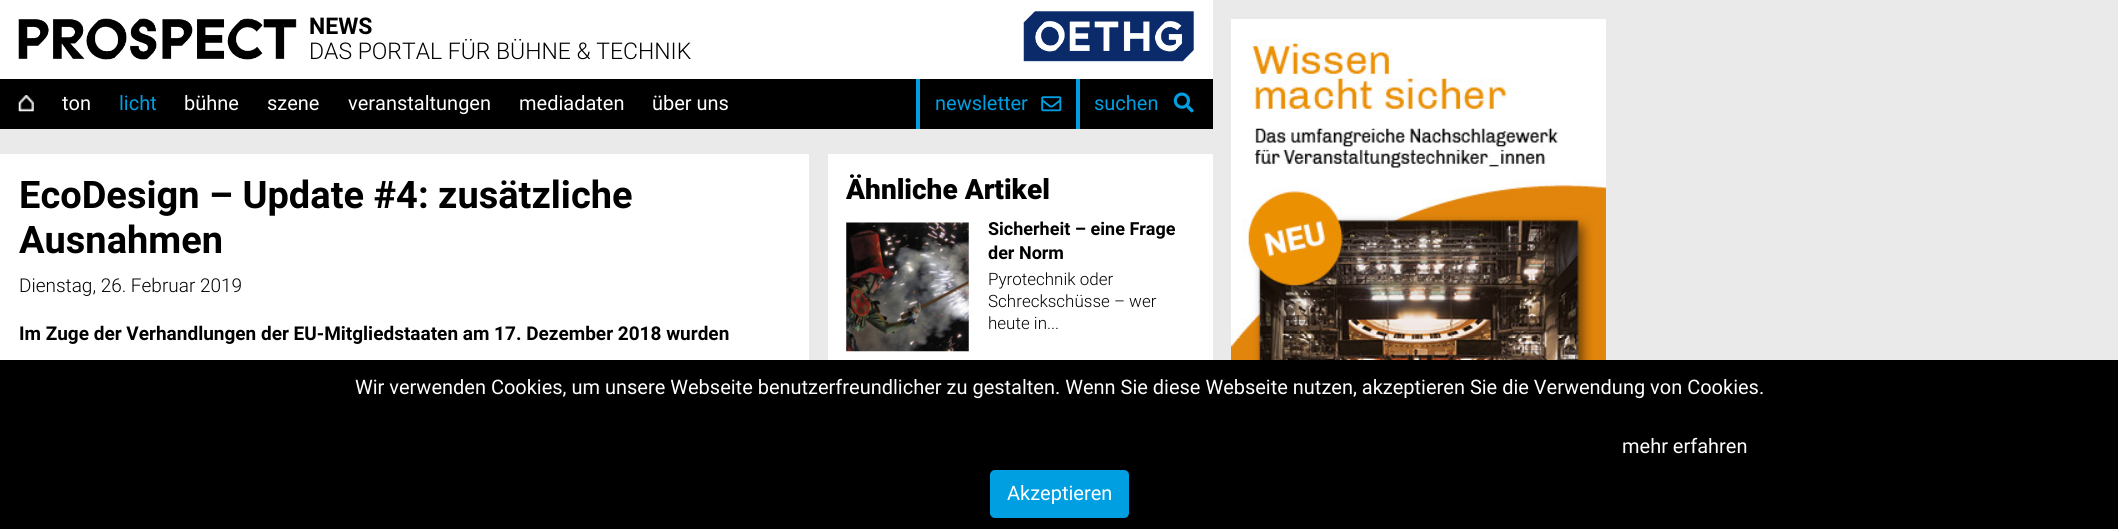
import math
import cairocffi as cairo

surface = cairo.ImageSurface(cairo.FORMAT_RGB24, 2118, 529)
ctx = cairo.Context(surface)
options = cairo.FontOptions()
options.set_hint_metrics(cairo.HINT_METRICS_OFF)
options.set_hint_style(cairo.HINT_STYLE_NONE)
ctx.set_font_options(options)
ctx.set_miter_limit(4)


def rgb(r, g, b):
    ctx.set_source_rgb(r / 255, g / 255, b / 255)


def face(family, size, italic, bold):
    ctx.select_font_face(family, cairo.FONT_SLANT_ITALIC if italic else cairo.FONT_SLANT_NORMAL, cairo.FONT_WEIGHT_BOLD if bold else cairo.FONT_WEIGHT_NORMAL)
    ctx.set_font_size(size)


def label(x, y, s):
    ctx.move_to(x, y)
    ctx.show_text(s)


def rect(x, y, w, h):
    ctx.rectangle(x, y, w, h)
    ctx.fill()


def rrect(x, y, w, h, r):
    ctx.new_sub_path()
    for i, (u, v) in enumerate([(x + w - r, y + h - r), (x + r, y + h - r), (x + r, y + r), (x + w - r, y + r)]):
        ctx.arc(u, v, r, i * math.pi / 2, (i + 1) * math.pi / 2)
    ctx.close_path()


def image(path, x, y, w, h):
    ctx.save()
    ctx.set_source_surface(cairo.ImageSurface.create_from_png(path), x, y)
    ctx.rectangle(x, y, w, h)
    ctx.fill()
    ctx.restore()


rgb(234, 234, 234)
ctx.paint()
rgb(255, 255, 255)
rect(0, 0, 1213, 79)
image('image0.png', 18, 18, 279, 42)
face('Roboto', 23, 0, 1)
rgb(0, 0, 0)
label(309, 34, 'NEWS')
face('Roboto Light', 23, 0, 0)
label(309, 59, 'DAS PORTAL FÜR BÜHNE & TECHNIK')
image('image1.png', 1023, 11, 171, 51)
rect(0, 79, 1213, 50)
image('image2.png', 18, 95, 16, 17)
face('Roboto', 20, 0, 0)
rgb(255, 255, 255)
label(62, 110, 'ton')
rgb(0, 159, 226)
label(119, 110, 'licht')
rgb(255, 255, 255)
label(184, 110, 'bühne')
label(267, 110, 'szene')
label(348, 110, 'veranstaltungen')
label(519, 110, 'mediadaten')
label(652, 110, 'über uns')
rgb(0, 159, 226)
rect(916, 79, 4, 50)
label(935, 110, 'newsletter')
image('image3.png', 1041, 96, 21, 16)
rect(1076, 79, 4, 50)
label(1094, 110, 'suchen')
image('image4.png', 1173, 92, 21, 21)
image('image5.png', 1231, 19, 375, 341)
rgb(255, 255, 255)
rect(0, 154, 809, 206)
face('Roboto', 38, 0, 1)
rgb(0, 0, 0)
label(19, 208, 'EcoDesign – Update #4: zusätzliche')
label(19, 253, 'Ausnahmen')
face('Roboto Light', 19, 0, 0)
label(19, 292, 'Dienstag, 26. Februar 2019')
face('Roboto', 19, 0, 1)
label(19, 340, 'Im Zuge der Verhandlungen der EU-Mitgliedstaaten am 17. Dezember 2018 wurden')
rgb(255, 255, 255)
rect(828, 154, 385, 206)
face('Roboto Black', 28, 0, 0)
rgb(0, 0, 0)
label(846, 199, 'Ähnliche Artikel')
image('image6.png', 846, 222, 123, 130)
face('Roboto', 18, 0, 1)
label(988, 235, 'Sicherheit – eine Frage')
label(988, 259, 'der Norm')
face('Roboto Light', 17, 0, 0)
label(988, 285, 'Pyrotechnik oder')
label(988, 307, 'Schreckschüsse – wer')
label(988, 329, 'heute in...')
rect(0, 360, 2118, 169)
face('Roboto', 20, 0, 0)
rgb(255, 255, 255)
label(355, 394, 'Wir verwenden Cookies, um unsere Webseite benutzerfreundlicher zu gestalten. Wenn Sie diese Webseite nutzen, akzeptieren Sie die Verwendung von Cookies.')
label(1622, 453, 'mehr erfahren')
rgb(0, 159, 226)
rrect(990, 470, 139, 48, 5)
ctx.fill()
rgb(255, 255, 255)
label(1007, 500, 'Akzeptieren')
surface.write_to_png('render.png')
